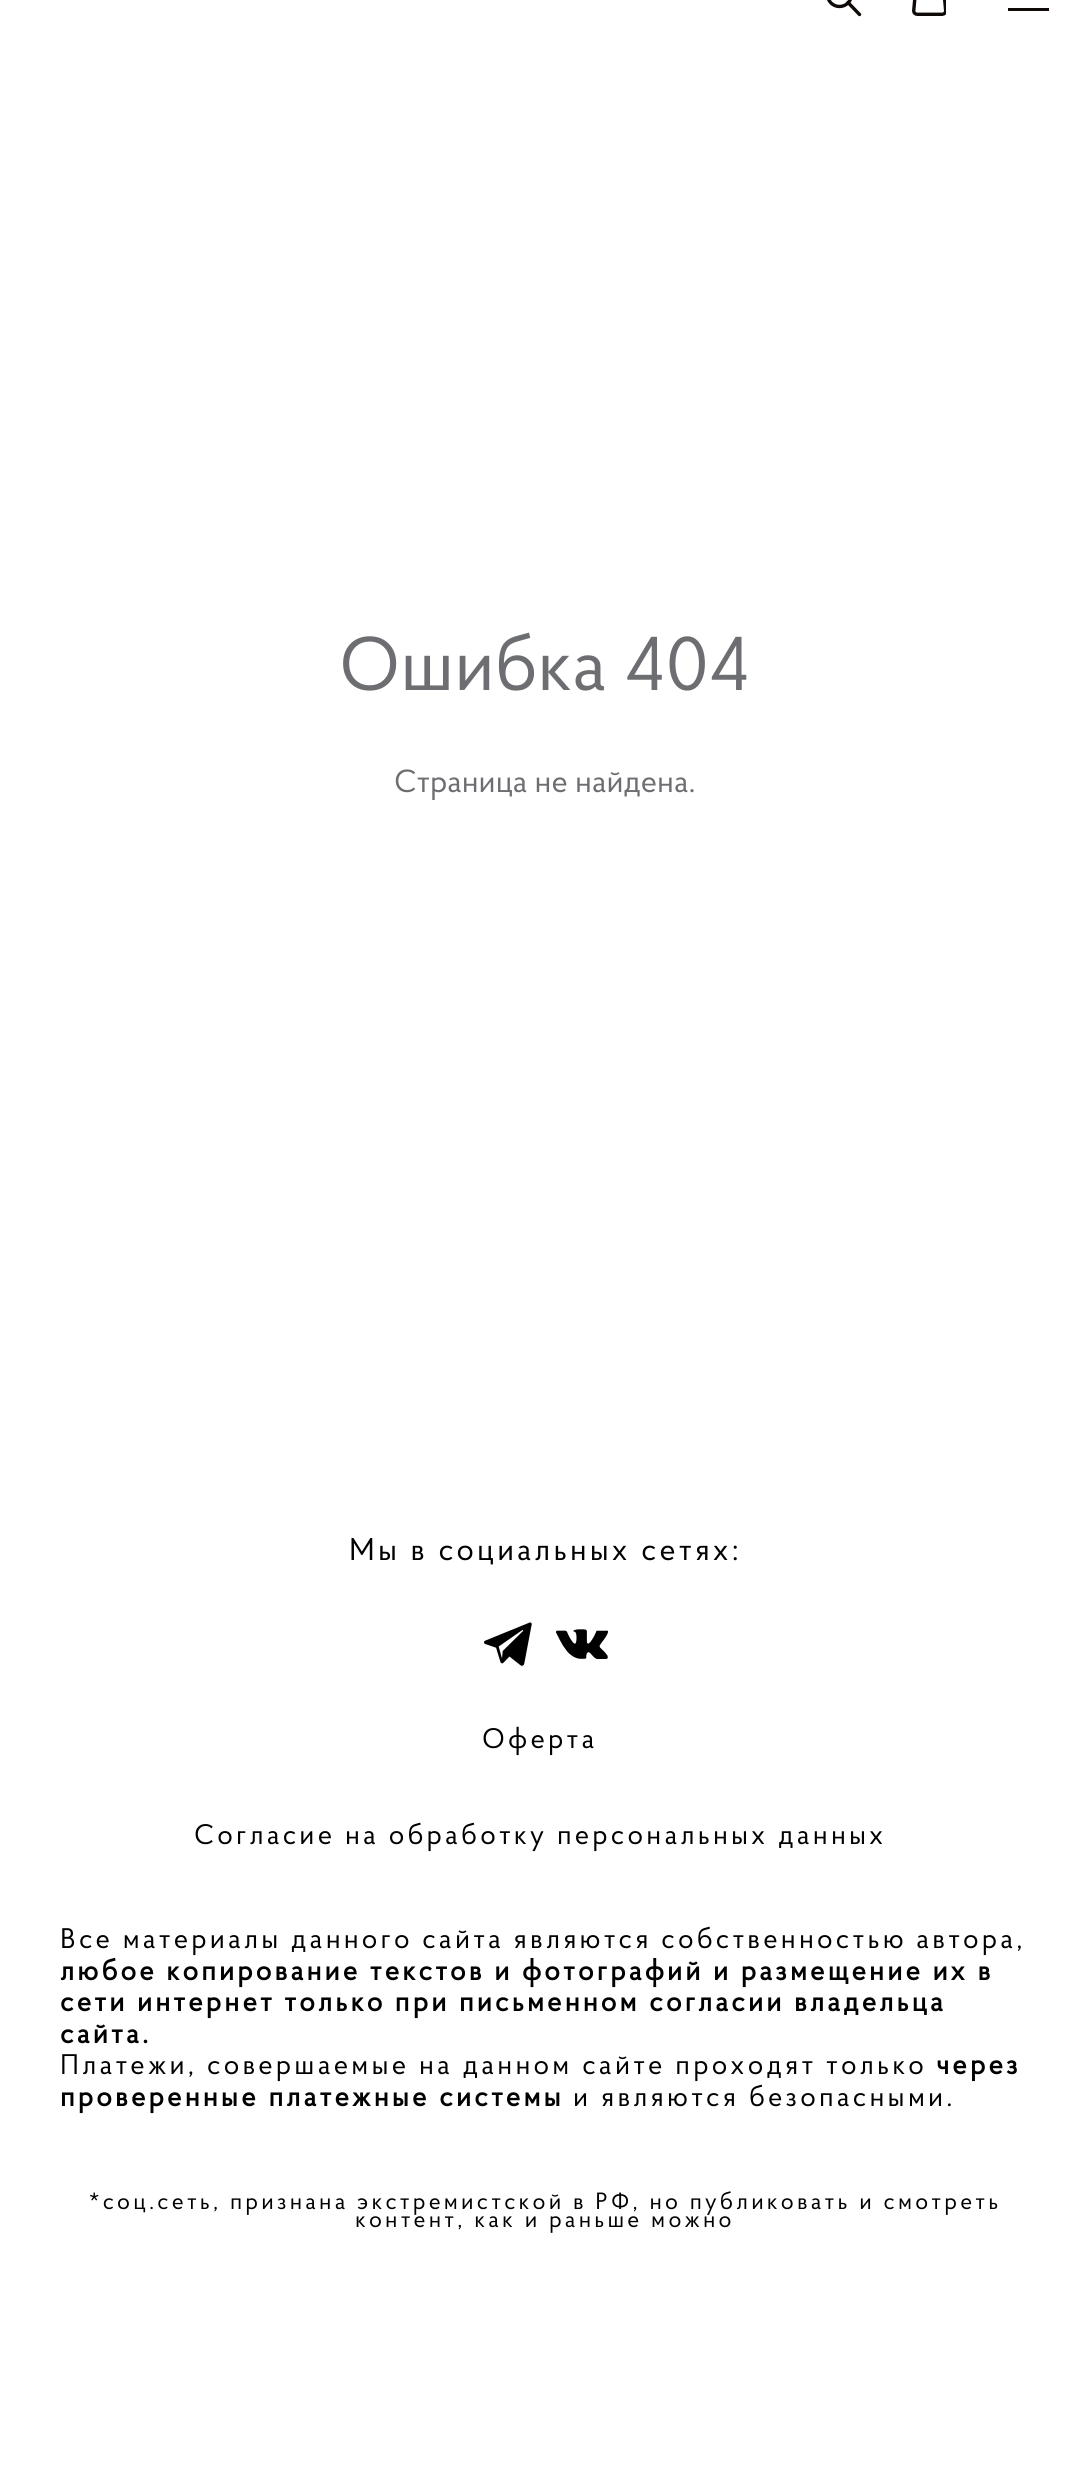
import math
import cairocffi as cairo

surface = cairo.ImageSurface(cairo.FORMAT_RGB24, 1090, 2484)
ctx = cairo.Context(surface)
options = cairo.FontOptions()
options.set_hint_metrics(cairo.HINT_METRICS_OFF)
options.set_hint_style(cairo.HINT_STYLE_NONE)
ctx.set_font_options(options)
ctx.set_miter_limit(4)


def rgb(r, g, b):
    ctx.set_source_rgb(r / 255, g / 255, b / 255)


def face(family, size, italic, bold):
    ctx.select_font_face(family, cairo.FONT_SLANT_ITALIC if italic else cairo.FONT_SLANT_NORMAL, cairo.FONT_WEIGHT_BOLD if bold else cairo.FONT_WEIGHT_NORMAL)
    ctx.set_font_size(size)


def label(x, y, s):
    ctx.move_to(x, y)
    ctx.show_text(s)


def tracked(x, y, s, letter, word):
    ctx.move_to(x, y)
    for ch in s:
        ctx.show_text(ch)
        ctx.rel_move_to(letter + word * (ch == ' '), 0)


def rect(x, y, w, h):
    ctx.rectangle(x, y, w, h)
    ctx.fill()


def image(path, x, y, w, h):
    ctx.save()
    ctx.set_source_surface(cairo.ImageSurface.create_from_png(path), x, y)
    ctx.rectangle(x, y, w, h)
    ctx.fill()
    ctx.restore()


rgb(255, 255, 255)
ctx.paint()
ctx.arc(839.5, -5.5, 12, 0, 2 * math.pi)
rgb(15, 10, 8)
ctx.set_line_width(3.4)
ctx.stroke()
ctx.new_path()
ctx.move_to(848, 2.5)
ctx.line_to(859.5, 14.5)
ctx.set_line_cap(cairo.LINE_CAP_ROUND)
ctx.set_line_join(cairo.LINE_JOIN_ROUND)
ctx.stroke()
image('image0.png', 912, 0, 34, 16)
rect(1008, 8, 41, 3)
face('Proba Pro', 76, 0, 0)
rgb(109, 110, 113)
label(339, 690, 'Ошибка 404')
face('Proba Pro', 32, 0, 0)
label(394, 792, 'Страница не найдена.')
face('Proba Pro', 31.5, 0, 0)
rgb(0, 0, 0)
tracked(349, 1560, 'Мы в социальных сетях:', 3.2, 0)
image('image1.png', 484, 1622, 48, 44)
image('image2.png', 556, 1629, 52, 31)
face('Proba Pro', 28.3, 0, 0)
tracked(482, 1748, 'Оферта', 3.2, 0)
tracked(194, 1844, 'Согласие на обработку персональных данных', 3.2, 0)
tracked(60, 1948, 'Все материалы данного сайта являются собственностью автора,', 3.2, -0.25)
face('Proba Pro', 28.3, 0, 1)
tracked(60, 1980, 'любое копирование текстов и фотографий и размещение их в', 3.2, -0.25)
tracked(60, 2011, 'сети интернет только при письменном согласии владельца', 3.2, -0.25)
tracked(60, 2043, 'сайта.', 3.2, 0)
face('Proba Pro', 28.3, 0, 0)
tracked(60, 2074, 'Платежи, совершаемые на данном сайте проходят только', 3.2, 0)
face('Proba Pro', 28.3, 0, 1)
tracked(936, 2074, 'через', 3.2, 0)
tracked(60, 2106, 'проверенные платежные системы', 3.2, 0)
face('Proba Pro', 28.3, 0, 0)
tracked(573, 2106, 'и являются безопасными.', 3.2, 0)
face('Proba Pro', 23.5, 0, 0)
tracked(89, 2209, '*соц.сеть, признана экстремистской в РФ, но публиковать и смотреть', 3.2, 0)
tracked(355, 2227, 'контент, как и раньше можно', 3.2, 0)
surface.write_to_png('render.png')
